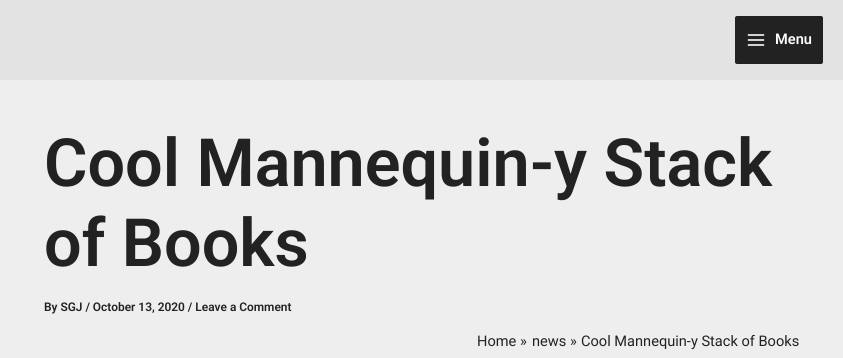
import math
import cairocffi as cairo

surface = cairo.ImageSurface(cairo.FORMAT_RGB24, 843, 358)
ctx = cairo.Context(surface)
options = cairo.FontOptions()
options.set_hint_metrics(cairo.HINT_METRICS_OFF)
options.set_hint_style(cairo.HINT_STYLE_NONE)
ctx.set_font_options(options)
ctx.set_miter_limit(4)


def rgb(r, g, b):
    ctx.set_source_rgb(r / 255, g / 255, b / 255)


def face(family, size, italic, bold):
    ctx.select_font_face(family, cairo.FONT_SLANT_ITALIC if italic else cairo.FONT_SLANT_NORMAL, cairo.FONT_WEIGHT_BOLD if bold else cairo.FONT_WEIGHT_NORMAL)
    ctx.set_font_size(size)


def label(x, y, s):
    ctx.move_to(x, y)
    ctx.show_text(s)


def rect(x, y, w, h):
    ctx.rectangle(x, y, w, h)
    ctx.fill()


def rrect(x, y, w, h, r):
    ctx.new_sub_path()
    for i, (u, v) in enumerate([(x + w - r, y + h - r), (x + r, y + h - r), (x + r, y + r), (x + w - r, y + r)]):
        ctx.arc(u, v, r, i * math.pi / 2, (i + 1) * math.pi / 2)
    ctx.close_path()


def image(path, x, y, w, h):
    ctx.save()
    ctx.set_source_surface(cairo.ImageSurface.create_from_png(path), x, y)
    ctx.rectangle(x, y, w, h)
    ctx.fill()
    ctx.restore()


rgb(238, 238, 238)
ctx.paint()
rgb(227, 227, 227)
rect(0, 0, 843, 80)
rgb(34, 34, 34)
rrect(735, 16, 88, 48, 2)
ctx.fill()
image('image0.png', 747, 34, 18, 12)
face('Roboto SemiBold', 14.6, 0, 0)
rgb(255, 255, 255)
label(775, 44, 'Menu')
face('Roboto SemiBold', 66.5, 0, 0)
rgb(34, 34, 34)
label(44, 186, 'Cool Mannequin-y Stack')
label(44, 266, 'of Books')
face('Roboto SemiBold', 11.9, 0, 0)
label(44, 311, 'By SGJ / October 13, 2020 / Leave a Comment')
face('Roboto', 14.6, 0, 0)
label(477, 346, 'Home')
label(520, 346, '»')
label(532, 346, 'news')
label(570, 346, '»')
label(581, 346, 'Cool Mannequin-y Stack of Books')
surface.write_to_png('render.png')
